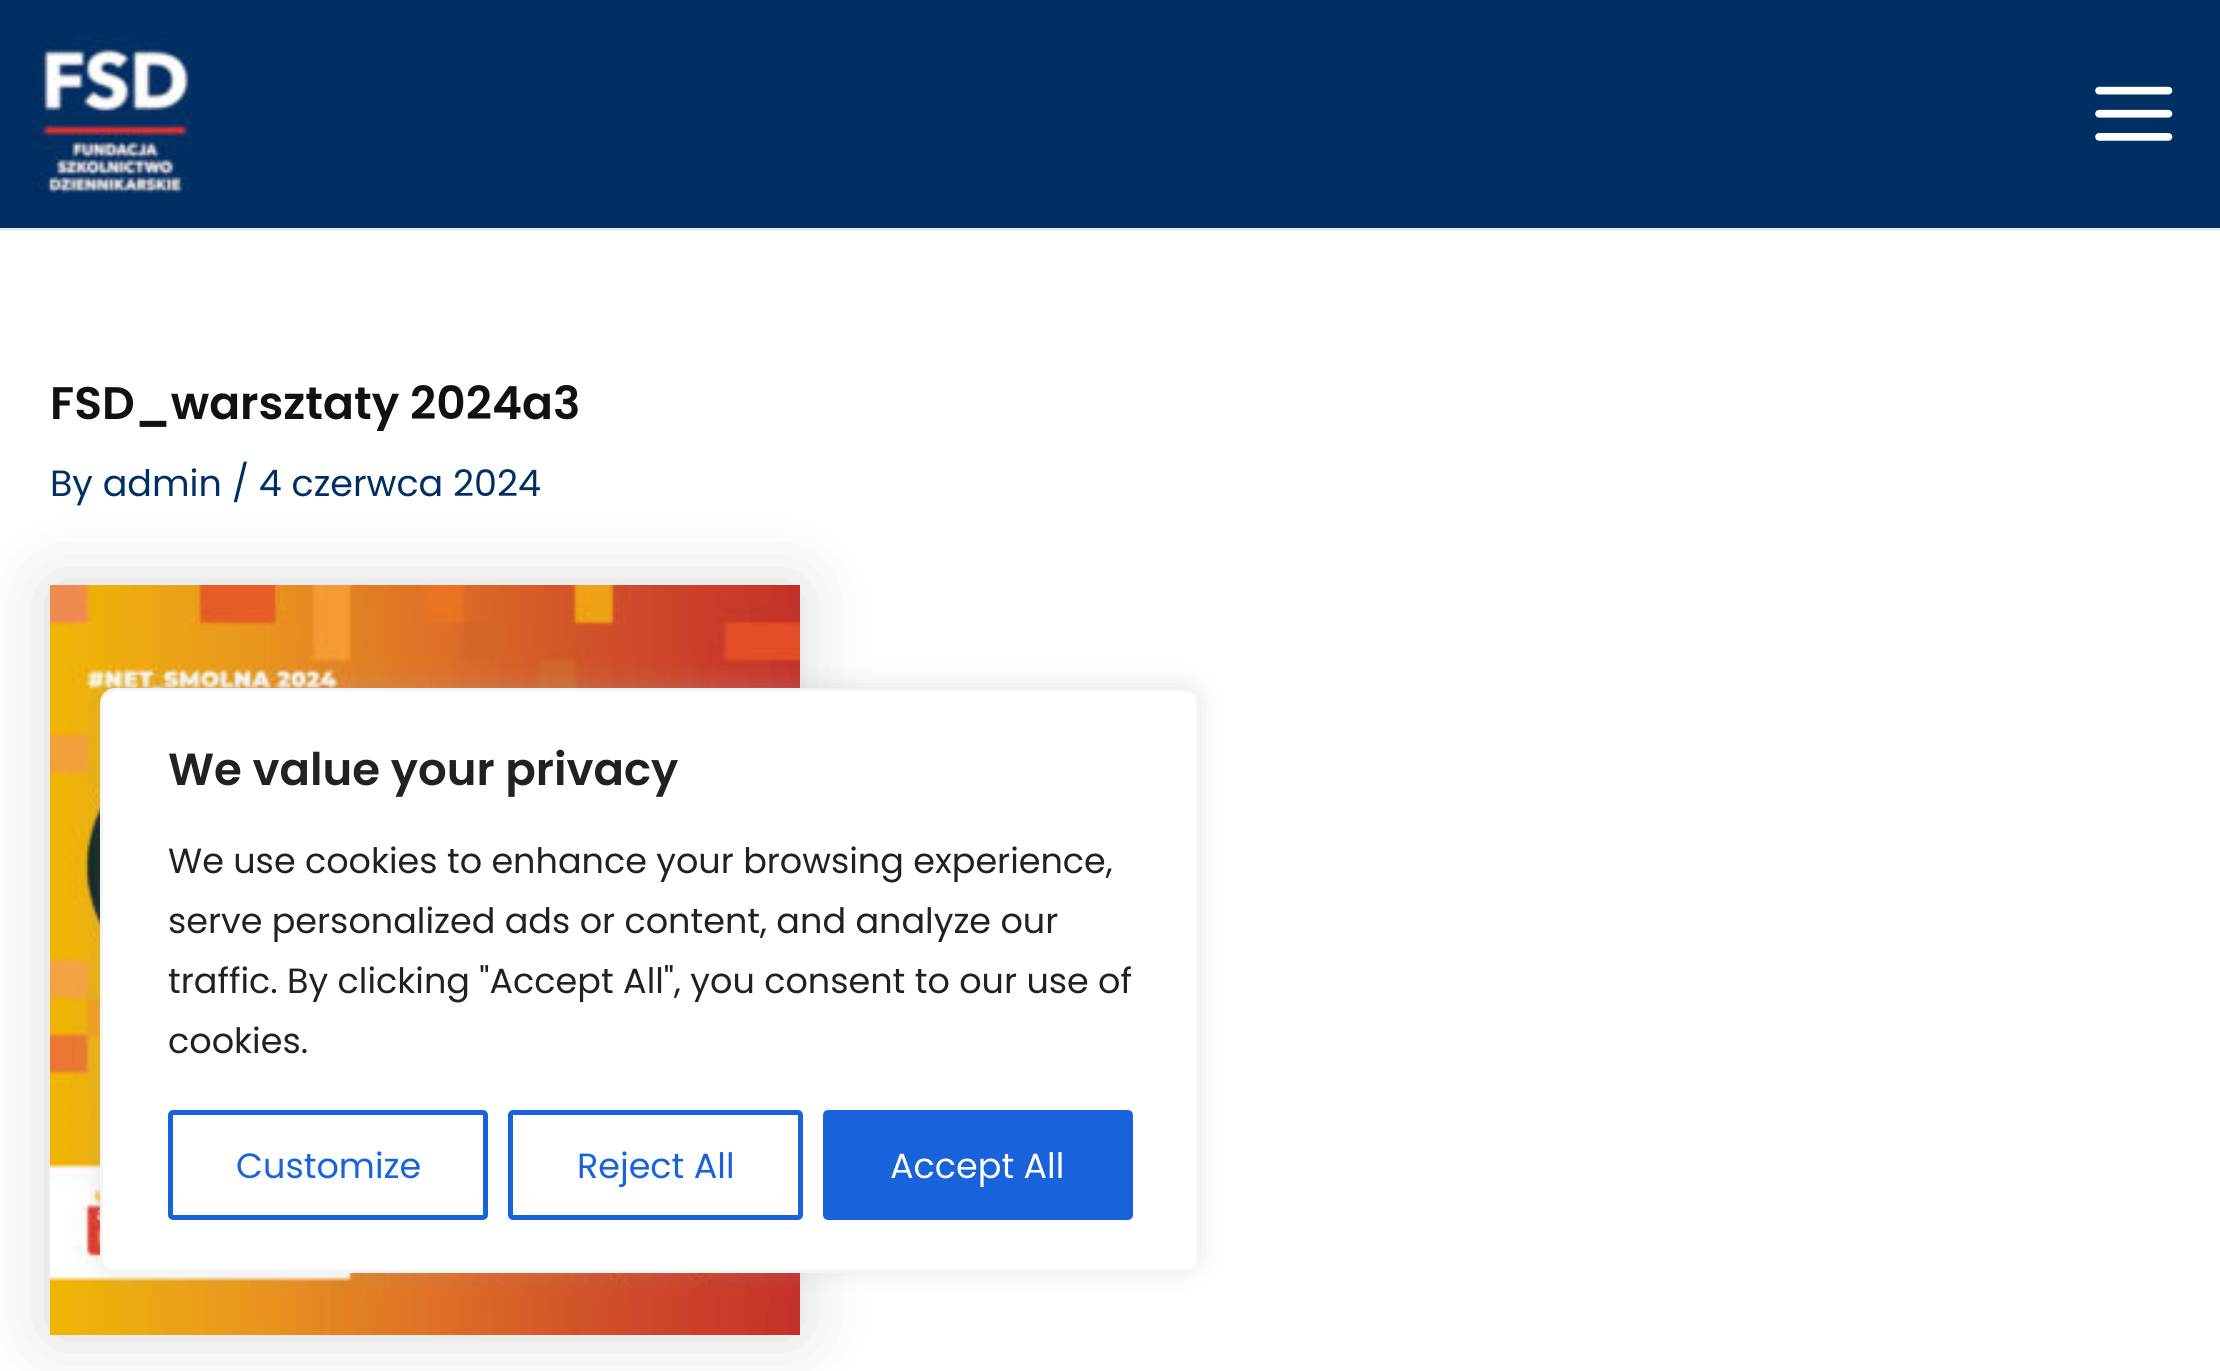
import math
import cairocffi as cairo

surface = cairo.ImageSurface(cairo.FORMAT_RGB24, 2220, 1371)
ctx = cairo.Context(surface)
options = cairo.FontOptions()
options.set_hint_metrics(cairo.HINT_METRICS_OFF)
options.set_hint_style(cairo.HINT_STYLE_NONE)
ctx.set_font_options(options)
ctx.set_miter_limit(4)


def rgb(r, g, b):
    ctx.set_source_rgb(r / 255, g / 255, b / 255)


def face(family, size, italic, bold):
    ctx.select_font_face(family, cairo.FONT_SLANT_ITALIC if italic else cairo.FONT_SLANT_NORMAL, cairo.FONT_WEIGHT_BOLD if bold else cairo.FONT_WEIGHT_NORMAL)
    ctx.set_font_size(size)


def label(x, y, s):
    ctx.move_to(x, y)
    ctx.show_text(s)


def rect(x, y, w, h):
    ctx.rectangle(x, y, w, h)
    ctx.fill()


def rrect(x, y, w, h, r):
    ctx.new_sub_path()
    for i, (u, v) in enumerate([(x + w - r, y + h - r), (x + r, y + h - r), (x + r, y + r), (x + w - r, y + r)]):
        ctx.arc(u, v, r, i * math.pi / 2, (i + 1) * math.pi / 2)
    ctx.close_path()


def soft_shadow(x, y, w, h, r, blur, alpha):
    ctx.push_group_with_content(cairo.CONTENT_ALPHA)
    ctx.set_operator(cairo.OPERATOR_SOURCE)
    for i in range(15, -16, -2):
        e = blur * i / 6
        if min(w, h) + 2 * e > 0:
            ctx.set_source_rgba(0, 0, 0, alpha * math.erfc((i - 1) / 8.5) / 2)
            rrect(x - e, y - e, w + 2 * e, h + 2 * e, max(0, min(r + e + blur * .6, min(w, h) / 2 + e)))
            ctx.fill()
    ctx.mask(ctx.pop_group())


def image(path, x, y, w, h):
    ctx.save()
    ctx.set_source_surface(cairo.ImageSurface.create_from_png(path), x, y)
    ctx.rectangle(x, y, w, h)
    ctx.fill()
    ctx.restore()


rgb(255, 255, 255)
ctx.paint()
rgb(0, 47, 99)
rect(0, 0, 2220, 228)
rgb(234, 234, 234)
rect(0, 228, 2220, 3)
image('image0.png', 32, 33, 161, 161)
image('image1.png', 2095, 86, 78, 55)
face('Poppins SemiBold', 45.6, 0, 0)
rgb(17, 17, 17)
label(50, 419, 'FSD_warsztaty 2024a3')
face('Poppins', 36.5, 0, 0)
rgb(0, 47, 99)
label(50, 496, 'By admin / 4 czerwca 2024')
rgb(0, 0, 0)
soft_shadow(50, 585, 750, 750, 0, 37.5, 0.15)
image('image2.png', 50, 585, 750, 750)
rgb(172, 171, 171)
soft_shadow(100, 685, 1100, 585, 15, 12.5, 0.3)
rgb(255, 255, 255)
rrect(101.5, 689.5, 1097, 582, 13.5)
ctx.fill_preserve()
rgb(244, 244, 244)
ctx.set_line_width(3)
ctx.stroke()
face('Poppins SemiBold', 45, 0, 0)
rgb(33, 33, 33)
label(168, 785, 'We value your privacy')
face('Poppins', 35, 0, 0)
label(168, 873, 'We use cookies to enhance your browsing experience,')
label(168, 933, 'serve personalized ads or content, and analyze our')
label(168, 993, 'traffic. By clicking "Accept All", you consent to our use of')
label(168, 1053, 'cookies.')
rrect(170.5, 1112.5, 315, 105, 2.5)
rgb(24, 99, 220)
ctx.set_line_width(5)
ctx.stroke()
label(236, 1178, 'Customize')
rrect(510.5, 1112.5, 290, 105, 2.5)
ctx.stroke()
label(577, 1178, 'Reject All')
rrect(825.5, 1112.5, 305, 105, 2.5)
ctx.fill_preserve()
ctx.stroke()
rgb(255, 255, 255)
label(890, 1178, 'Accept All')
surface.write_to_png('render.png')
